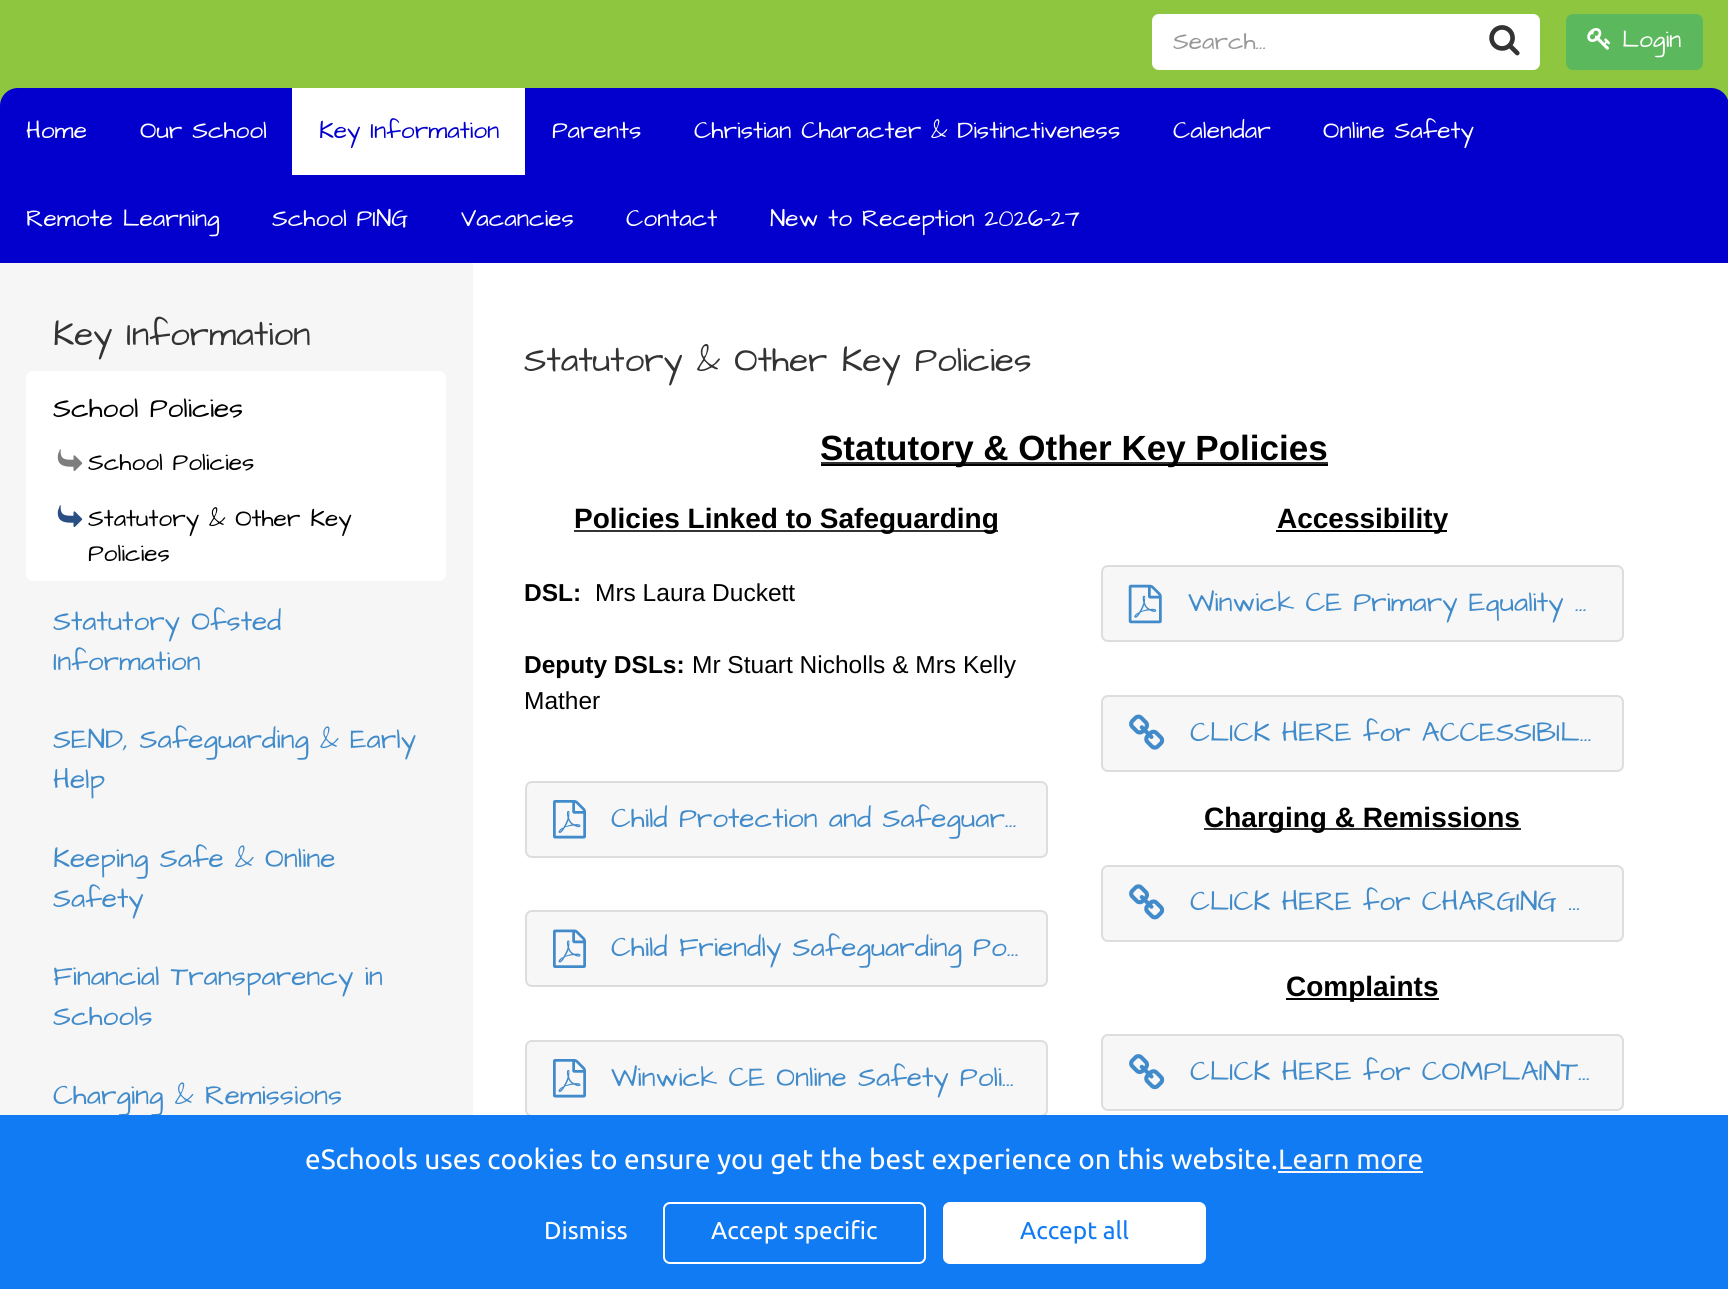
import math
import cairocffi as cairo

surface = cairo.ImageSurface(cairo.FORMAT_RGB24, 1728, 1289)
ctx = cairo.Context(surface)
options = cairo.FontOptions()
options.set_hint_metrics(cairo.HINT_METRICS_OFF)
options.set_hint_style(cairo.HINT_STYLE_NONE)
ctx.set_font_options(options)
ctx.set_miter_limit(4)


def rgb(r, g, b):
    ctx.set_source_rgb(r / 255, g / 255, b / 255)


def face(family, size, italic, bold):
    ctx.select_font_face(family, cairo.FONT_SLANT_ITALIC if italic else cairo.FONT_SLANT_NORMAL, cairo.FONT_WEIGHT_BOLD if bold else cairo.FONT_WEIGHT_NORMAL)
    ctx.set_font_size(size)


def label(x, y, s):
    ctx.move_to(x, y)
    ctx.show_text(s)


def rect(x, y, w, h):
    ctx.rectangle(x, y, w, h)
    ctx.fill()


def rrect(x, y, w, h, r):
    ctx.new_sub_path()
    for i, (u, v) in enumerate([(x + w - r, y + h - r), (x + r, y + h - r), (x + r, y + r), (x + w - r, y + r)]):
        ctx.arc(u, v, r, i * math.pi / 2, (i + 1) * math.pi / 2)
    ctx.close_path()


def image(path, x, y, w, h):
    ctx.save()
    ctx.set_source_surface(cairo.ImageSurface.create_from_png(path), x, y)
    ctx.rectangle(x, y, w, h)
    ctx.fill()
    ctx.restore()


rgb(142, 198, 63)
ctx.paint()
rgb(255, 255, 255)
ctx.new_path()
ctx.move_to(1159, 14)
ctx.line_to(1470, 14)
ctx.line_to(1470, 70)
ctx.line_to(1159, 70)
ctx.curve_to(1155, 70, 1152, 67, 1152, 63)
ctx.line_to(1152, 21)
ctx.curve_to(1152, 17, 1155, 14, 1159, 14)
ctx.close_path()
ctx.fill()
face('Architects Daughter', 24.5, 0, 0)
rgb(153, 153, 153)
label(1173, 49, 'Search...')
rgb(255, 255, 255)
ctx.new_path()
ctx.move_to(1468, 14)
ctx.line_to(1533, 14)
ctx.curve_to(1537, 14, 1540, 17, 1540, 21)
ctx.line_to(1540, 63)
ctx.curve_to(1540, 67, 1537, 70, 1533, 70)
ctx.line_to(1468, 70)
ctx.close_path()
ctx.fill()
image('image0.png', 1489, 25, 31, 31)
rgb(92, 184, 92)
rrect(1566, 14, 137, 56, 7)
ctx.fill()
image('image1.png', 1587, 28, 24, 22)
rgb(255, 255, 255)
label(1622, 47, 'Login')
rgb(3, 0, 206)
ctx.new_path()
ctx.move_to(18, 88)
ctx.line_to(1711, 88)
ctx.curve_to(1721, 88, 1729, 96, 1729, 106)
ctx.line_to(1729, 263)
ctx.line_to(0, 263)
ctx.line_to(0, 106)
ctx.curve_to(0, 96, 8, 88, 18, 88)
ctx.close_path()
ctx.fill()
rgb(255, 255, 255)
label(26, 138, 'Home')
label(140, 138, 'Our School')
rect(292, 88, 233, 87)
rgb(3, 0, 206)
label(319, 138, 'Key Information')
rgb(255, 255, 255)
label(552, 138, 'Parents')
label(694, 138, 'Christian Character & Distinctiveness')
label(1173, 138, 'Calendar')
label(1323, 138, 'Online Safety')
label(26, 226, 'Remote Learning')
label(272, 226, 'School PING')
label(461, 226, 'Vacancies')
label(626, 226, 'Contact')
label(770, 226, 'New to Reception 2026-27')
rect(473, 263, 1255, 852)
rgb(246, 246, 246)
rect(0, 263, 473, 852)
face('Architects Daughter', 35, 0, 0)
rgb(51, 51, 51)
label(53, 345, 'Key Information')
rgb(255, 255, 255)
rrect(26, 371, 420, 210, 7)
ctx.fill()
face('Architects Daughter', 28, 0, 0)
rgb(0, 0, 0)
label(53, 417, 'School Policies')
image('image2.png', 57, 449, 26, 22)
face('Architects Daughter', 24.5, 0, 0)
label(88, 470, 'School Policies')
image('image3.png', 57, 505, 26, 22)
label(88, 526, 'Statutory & Other Key')
label(88, 561, 'Policies')
face('Architects Daughter', 28, 0, 0)
rgb(66, 139, 202)
label(53, 630, 'Statutory Ofsted')
label(53, 670, 'Information')
label(53, 748, 'SEND, Safeguarding & Early')
label(53, 788, 'Help')
label(53, 867, 'Keeping Safe & Online')
label(53, 907, 'Safety')
label(53, 985, 'Financial Transparency in')
label(53, 1025, 'Schools')
label(53, 1104, 'Charging & Remissions')
face('Architects Daughter', 35, 0, 0)
rgb(51, 51, 51)
label(524, 371, 'Statutory & Other Key Policies')
rgb(0, 0, 0)
rect(821, 464, 507, 2)
rgb(51, 51, 51)
rect(821, 462, 507, 2)
face('Liberation Sans', 35, 0, 1)
rgb(0, 0, 0)
label(820, 460, 'Statutory & Other Key Policies')
rgb(51, 51, 51)
rect(574, 530, 424, 2)
face('Liberation Sans', 28, 0, 1)
rgb(0, 0, 0)
label(574, 528, 'Policies Linked to Safeguarding')
face('Liberation Sans', 24.5, 0, 1)
label(524, 601, 'DSL:')
face('Liberation Sans', 24.5, 0, 0)
label(595, 601, 'Mrs Laura Duckett')
face('Liberation Sans', 24.5, 0, 1)
label(524, 673, 'Deputy DSLs:')
face('Liberation Sans', 24.5, 0, 0)
label(692, 673, 'Mr Stuart Nicholls & Mrs Kelly')
label(524, 709, 'Mather')
rgb(247, 247, 247)
rrect(526, 782, 521, 75, 6)
ctx.fill_preserve()
rgb(221, 221, 221)
ctx.stroke()
image('image4.png', 553, 800, 33, 39)
face('Architects Daughter', 28, 0, 0)
rgb(66, 139, 202)
label(611, 827, 'Child Protection and Safeguar…')
rgb(247, 247, 247)
rrect(526, 911, 521, 75, 6)
ctx.fill_preserve()
rgb(221, 221, 221)
ctx.stroke()
image('image5.png', 553, 929, 33, 39)
rgb(66, 139, 202)
label(611, 956, 'Child Friendly Safeguarding Po…')
rgb(247, 247, 247)
rrect(526, 1041, 521, 75, 6)
ctx.fill_preserve()
rgb(221, 221, 221)
ctx.stroke()
image('image4.png', 553, 1059, 33, 39)
rgb(66, 139, 202)
label(611, 1086, 'Winwick CE Online Safety Poli…')
rgb(0, 0, 0)
rect(1276, 530, 171, 2)
face('Liberation Sans', 28, 0, 1)
label(1277, 528, 'Accessibility')
rgb(247, 247, 247)
rrect(1102, 566, 521, 75, 6)
ctx.fill_preserve()
rgb(221, 221, 221)
ctx.stroke()
image('image6.png', 1128, 584, 34, 40)
face('Architects Daughter', 28, 0, 0)
rgb(66, 139, 202)
label(1188, 611, 'Winwick CE Primary Equality …')
rgb(247, 247, 247)
rrect(1102, 696, 521, 75, 6)
ctx.fill_preserve()
rgb(221, 221, 221)
ctx.stroke()
image('image7.png', 1129, 714, 36, 36)
rgb(66, 139, 202)
label(1190, 741, 'CLICK HERE for ACCESSIBIL…')
rgb(51, 51, 51)
rect(1204, 828, 317, 2)
face('Liberation Sans', 28, 0, 1)
rgb(0, 0, 0)
label(1204, 827, 'Charging & Remissions')
rgb(247, 247, 247)
rrect(1102, 866, 521, 75, 6)
ctx.fill_preserve()
rgb(221, 221, 221)
ctx.stroke()
image('image8.png', 1129, 884, 36, 36)
face('Architects Daughter', 28, 0, 0)
rgb(66, 139, 202)
label(1190, 910, 'CLICK HERE for CHARGING …')
rgb(0, 0, 0)
rect(1286, 998, 153, 2)
face('Liberation Sans', 28, 0, 1)
label(1286, 996, 'Complaints')
rgb(247, 247, 247)
rrect(1102, 1035, 521, 75, 6)
ctx.fill_preserve()
rgb(221, 221, 221)
ctx.stroke()
image('image9.png', 1129, 1054, 36, 36)
face('Architects Daughter', 28, 0, 0)
rgb(66, 139, 202)
label(1190, 1080, 'CLICK HERE for COMPLAINT…')
rgb(17, 123, 243)
rect(0, 1115, 1728, 174)
face('Ubuntu', 28, 0, 0)
rgb(255, 255, 255)
label(305, 1169, 'eSchools uses cookies to ensure you get the best experience on this website.')
rgb(247, 247, 247)
rect(1278, 1171, 145, 2)
label(1278, 1169, 'Learn more')
face('Ubuntu', 24.5, 0, 0)
rgb(255, 255, 255)
label(544, 1239, 'Dismiss')
rrect(664, 1203, 261, 60, 6)
ctx.stroke()
label(711, 1239, 'Accept specific')
rrect(944, 1203, 261, 60, 6)
ctx.fill_preserve()
ctx.stroke()
rgb(17, 123, 243)
label(1020, 1239, 'Accept all')
surface.write_to_png('render.png')
